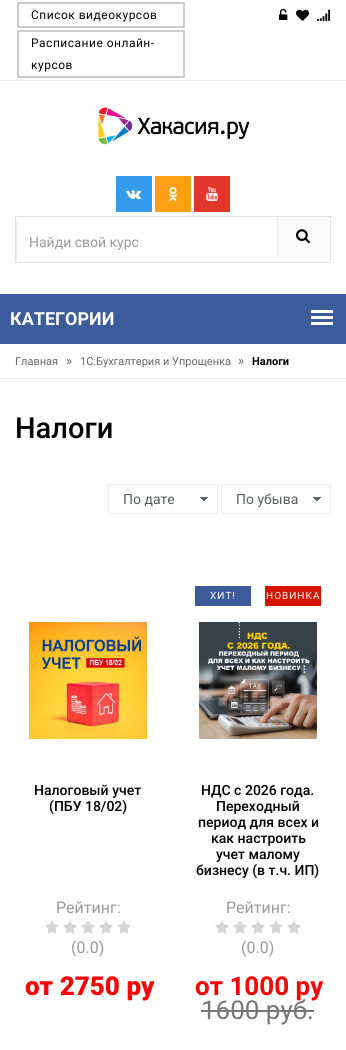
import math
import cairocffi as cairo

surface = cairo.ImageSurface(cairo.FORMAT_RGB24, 346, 1050)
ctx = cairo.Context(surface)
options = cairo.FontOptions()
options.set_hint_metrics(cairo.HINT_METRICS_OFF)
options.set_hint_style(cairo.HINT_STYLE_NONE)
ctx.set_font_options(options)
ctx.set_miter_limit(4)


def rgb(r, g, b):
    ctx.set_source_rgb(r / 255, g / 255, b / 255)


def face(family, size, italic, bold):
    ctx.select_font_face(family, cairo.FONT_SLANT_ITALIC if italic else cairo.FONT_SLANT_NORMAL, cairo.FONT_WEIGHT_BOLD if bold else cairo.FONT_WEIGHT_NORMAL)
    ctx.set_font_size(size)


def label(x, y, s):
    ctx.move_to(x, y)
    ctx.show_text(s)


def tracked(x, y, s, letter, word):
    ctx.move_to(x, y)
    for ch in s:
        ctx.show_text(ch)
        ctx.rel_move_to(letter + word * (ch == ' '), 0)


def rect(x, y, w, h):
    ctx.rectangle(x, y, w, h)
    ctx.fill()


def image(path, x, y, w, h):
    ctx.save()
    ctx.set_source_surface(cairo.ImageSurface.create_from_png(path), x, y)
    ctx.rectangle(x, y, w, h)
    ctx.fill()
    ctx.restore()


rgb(255, 255, 255)
ctx.paint()
rgb(234, 234, 234)
rect(0, 80, 346, 1)
ctx.rectangle(18, 3, 166, 24)
rgb(204, 204, 204)
ctx.stroke()
face('Roboto', 12, 0, 0)
rgb(0, 0, 0)
tracked(31, 19, 'Список видеокурсов', 0.5, 0)
ctx.rectangle(18, 31, 166, 46)
rgb(204, 204, 204)
ctx.stroke()
rgb(0, 0, 0)
tracked(31, 47, 'Расписание онлайн-', 0.5, 0)
tracked(31, 69, 'курсов', 0.5, 0)
image('image0.png', 279, 8, 9, 12)
image('image1.png', 296, 9, 13, 12)
image('image2.png', 317, 9, 13, 12)
image('image3.png', 98, 107, 152, 38)
rgb(53, 155, 237)
rect(116, 176, 36, 36)
image('image4.png', 126, 190, 15, 9)
rgb(253, 159, 19)
rect(155, 176, 36, 36)
image('image5.png', 168, 187, 10, 14)
rgb(227, 55, 41)
rect(194, 176, 36, 36)
image('image6.png', 206, 187, 12, 14)
ctx.rectangle(15.5, 216.5, 315, 46)
rgb(224, 224, 224)
ctx.set_line_width(1)
ctx.stroke()
rgb(234, 234, 234)
rect(16, 222, 1, 40)
face('Roboto', 14, 0, 0)
rgb(153, 153, 153)
label(29, 247, 'Найди свой курс')
rgb(250, 250, 250)
rect(278, 217, 52, 40)
rgb(234, 234, 234)
rect(277, 217, 1, 40)
image('image7.png', 296, 229, 14, 15)
rgb(60, 91, 155)
rect(0, 294, 346, 50)
face('Roboto', 18, 0, 1)
rgb(255, 255, 255)
label(10, 325, 'КАТЕГОРИИ')
rect(311, 310, 22, 3)
rect(311, 316, 22, 3)
rect(311, 322, 22, 3)
rgb(234, 234, 234)
rect(0, 378, 346, 1)
face('Roboto', 11, 0, 0)
rgb(102, 102, 102)
label(15, 365, 'Главная')
face('Roboto', 13, 0, 0)
label(66, 365, '»')
face('Roboto', 11, 0, 0)
label(80, 365, '1С:Бухгалтерия и Упрощенка')
face('Roboto', 13, 0, 0)
label(238, 365, '»')
face('Roboto', 11, 0, 1)
rgb(0, 0, 0)
label(252, 365, 'Налоги')
face('Roboto Medium', 29, 0, 0)
label(15, 438, 'Налоги')
image('image8.png', 200, 497, 8, 4)
ctx.rectangle(108.5, 484.5, 109, 29)
rgb(238, 238, 238)
ctx.stroke()
face('Roboto', 14, 0, 0)
rgb(85, 89, 92)
label(123, 504, 'По дате')
image('image8.png', 313, 497, 8, 4)
ctx.rectangle(221.5, 484.5, 109, 29)
rgb(238, 238, 238)
ctx.stroke()
rgb(85, 89, 92)
label(236, 504, 'По убыва')
image('image9.png', 29, 622, 118, 117)
face('Roboto Medium', 14, 0, 0)
rgb(0, 0, 0)
label(34, 795, 'Налоговый учет')
label(49, 811, '(ПБУ 18/02)')
face('Roboto', 16, 0, 0)
rgb(153, 153, 153)
label(56, 913, 'Рейтинг:')
image('image10.png', 45, 920, 86, 14)
label(71, 953, '(0.0)')
face('Roboto Black', 26, 0, 0)
rgb(254, 1, 0)
label(25, 995, 'от 2750 ру')
rgb(60, 91, 155)
rect(195, 586, 56, 20)
face('Roboto', 10, 0, 0)
rgb(255, 255, 255)
tracked(210, 599, 'ХИТ!', 1, 0)
rgb(213, 19, 0)
rect(265, 586, 56, 20)
rgb(255, 255, 255)
tracked(266, 599, 'НОВИНКА', 1, 0)
image('image11.png', 199, 622, 118, 117)
face('Roboto Medium', 14, 0, 0)
rgb(0, 0, 0)
label(201, 795, 'НДС с 2026 года.')
label(216, 811, 'Переходный')
label(198, 827, 'период для всех и')
label(211, 843, 'как настроить')
label(216, 859, 'учет малому')
label(196, 875, 'бизнесу (в т.ч. ИП)')
face('Roboto', 16, 0, 0)
rgb(153, 153, 153)
label(226, 913, 'Рейтинг:')
image('image10.png', 215, 920, 86, 14)
label(241, 953, '(0.0)')
face('Roboto', 26, 0, 1)
rgb(254, 1, 0)
label(195, 995, 'от 1000 ру')
face('Roboto', 26, 0, 0)
rgb(119, 119, 119)
label(201, 1019, '1600 руб.')
rect(201, 1010, 113, 2)
surface.write_to_png('render.png')
